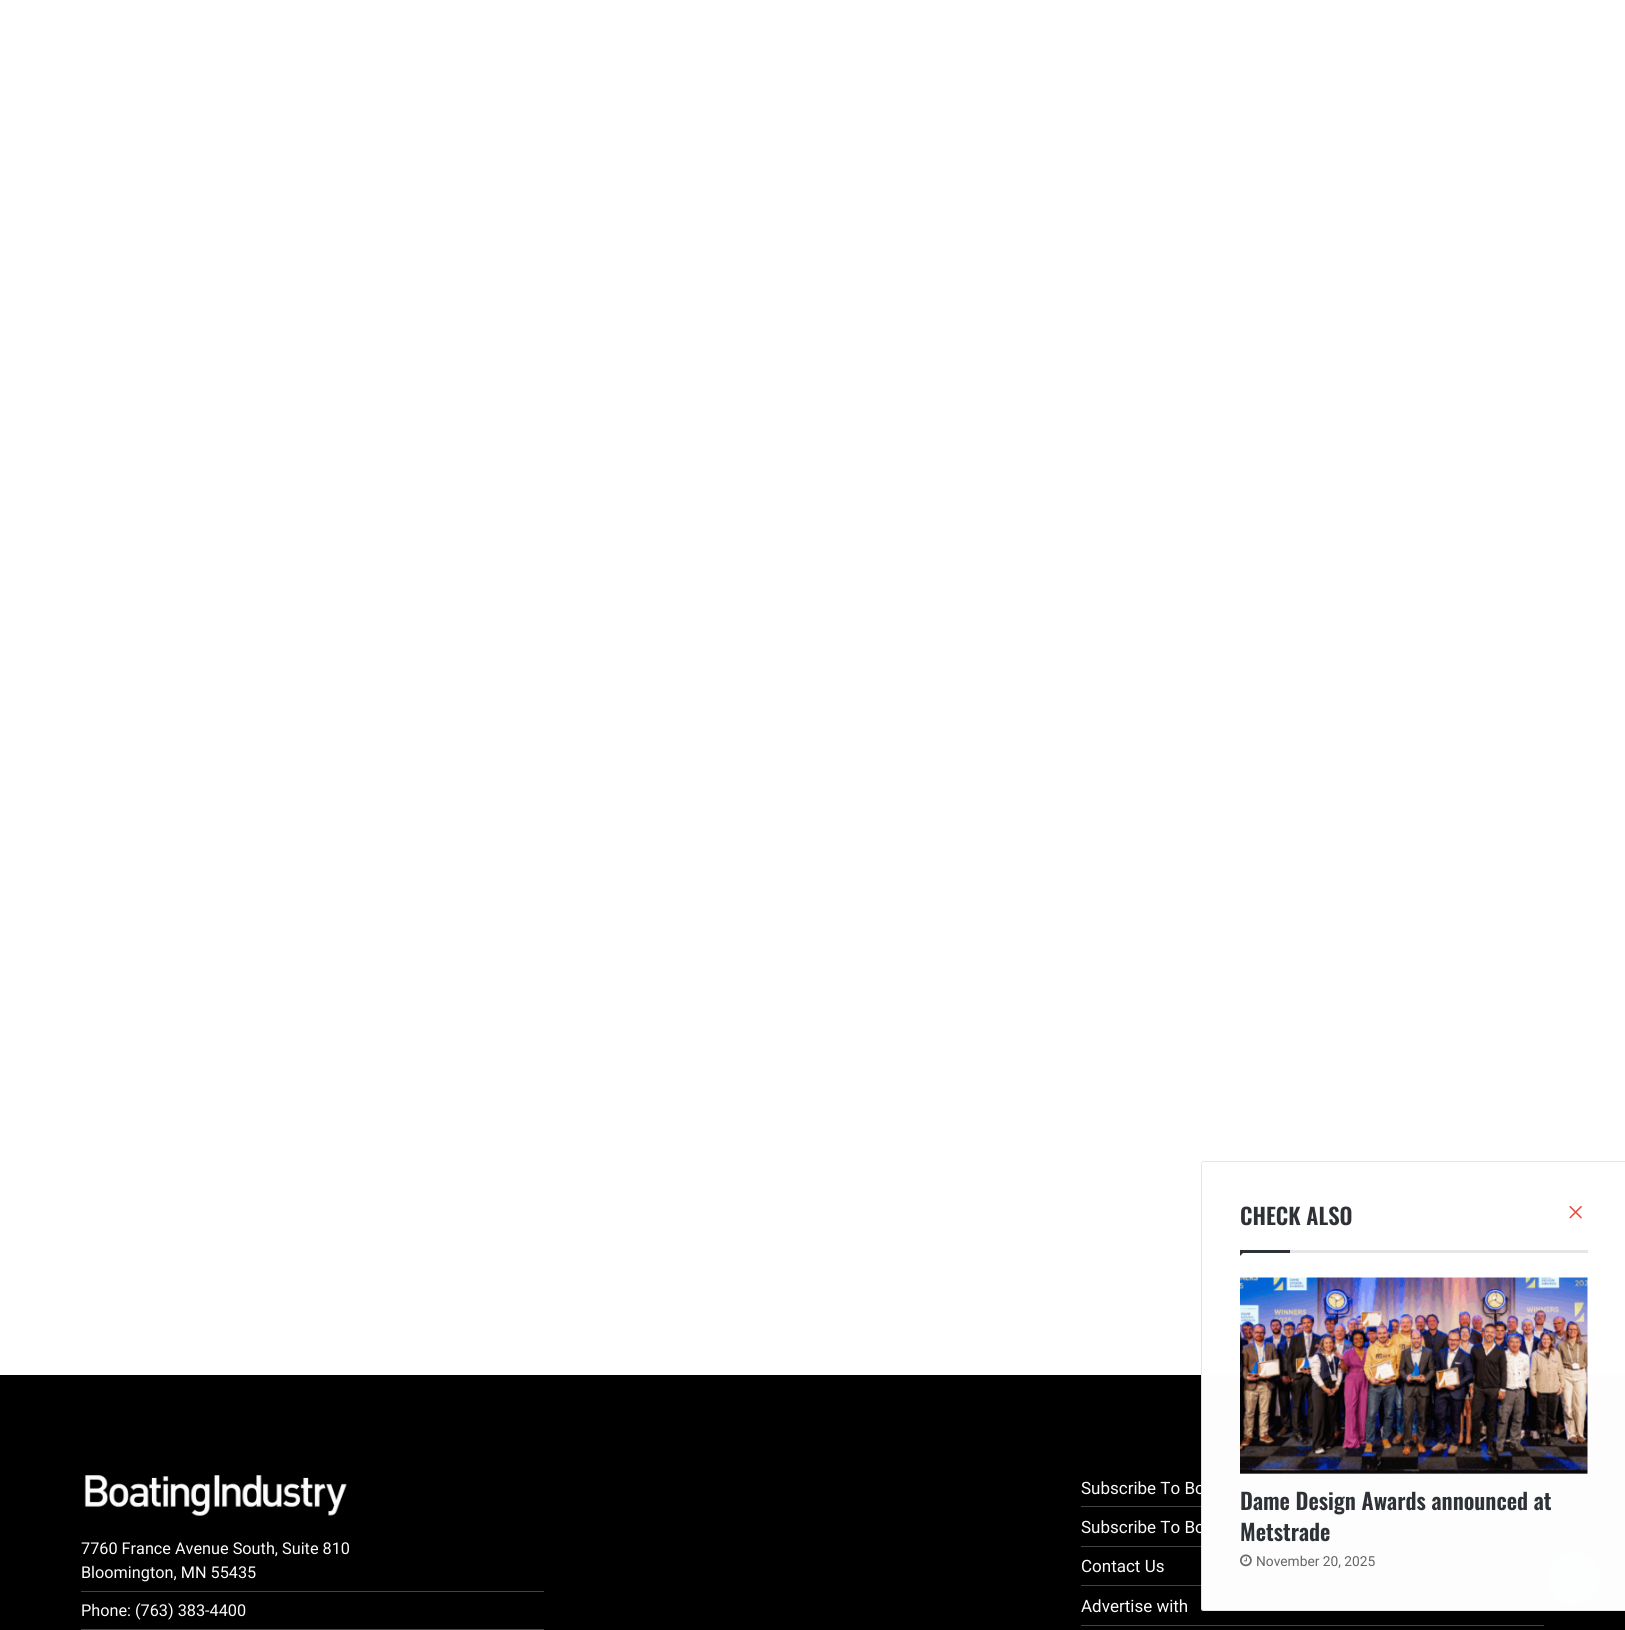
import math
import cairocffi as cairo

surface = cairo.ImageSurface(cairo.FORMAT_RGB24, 1625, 1630)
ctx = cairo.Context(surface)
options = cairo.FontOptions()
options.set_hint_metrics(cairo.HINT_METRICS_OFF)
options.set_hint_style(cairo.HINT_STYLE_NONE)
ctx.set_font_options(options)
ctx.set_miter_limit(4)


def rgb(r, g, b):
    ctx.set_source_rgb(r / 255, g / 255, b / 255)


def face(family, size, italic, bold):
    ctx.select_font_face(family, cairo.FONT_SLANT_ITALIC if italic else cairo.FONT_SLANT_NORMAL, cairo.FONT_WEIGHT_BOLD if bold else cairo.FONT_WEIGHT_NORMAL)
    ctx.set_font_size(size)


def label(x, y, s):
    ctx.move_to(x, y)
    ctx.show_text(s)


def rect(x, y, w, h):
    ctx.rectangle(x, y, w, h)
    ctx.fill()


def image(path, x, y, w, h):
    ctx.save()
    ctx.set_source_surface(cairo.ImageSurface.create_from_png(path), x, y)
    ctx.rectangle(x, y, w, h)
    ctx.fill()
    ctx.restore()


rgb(255, 255, 255)
ctx.paint()
rgb(0, 0, 0)
rect(0, 1375, 1625, 255)
image('image0.png', 84, 1475, 263, 41)
rgb(67, 67, 67)
rect(81, 1591, 463, 1)
face('Roboto', 16.25, 0, 0)
rgb(252, 252, 252)
label(81, 1554, '7760 France Avenue South, Suite 810')
label(81, 1578, 'Bloomington, MN 55435')
rgb(67, 67, 67)
rect(81, 1629, 463, 1)
rgb(252, 252, 252)
label(81, 1616, 'Phone: (763) 383-4400')
rgb(67, 67, 67)
rect(1081, 1506, 463, 1)
face('Roboto', 17, 0, 0)
rgb(252, 252, 252)
label(1081, 1494, 'Subscribe To Bo')
rgb(67, 67, 67)
rect(1081, 1546, 463, 1)
rgb(252, 252, 252)
label(1081, 1533, 'Subscribe To Bo')
rgb(67, 67, 67)
rect(1081, 1585, 463, 1)
rgb(252, 252, 252)
label(1081, 1572, 'Contact Us')
rgb(67, 67, 67)
rect(1081, 1625, 463, 1)
rgb(252, 252, 252)
label(1081, 1612, 'Advertise with')
rgb(0, 114, 188)
ctx.new_path()
ctx.arc(1574, 1579, 26, 0, 2 * math.pi)
ctx.fill()
image('image4.png', 1566, 1571, 16, 10)
ctx.set_source_rgba(1, 1, 1, 0.99)
ctx.new_path()
ctx.move_to(1203.5, 1161)
ctx.line_to(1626, 1161)
ctx.line_to(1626, 1611)
ctx.line_to(1203.5, 1611)
ctx.curve_to(1202, 1611, 1201, 1610, 1201, 1608.5)
ctx.line_to(1201, 1163.5)
ctx.curve_to(1201, 1162, 1202, 1161, 1203.5, 1161)
ctx.close_path()
ctx.fill()
ctx.new_path()
ctx.move_to(1203.5, 1161.5)
ctx.line_to(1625.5, 1161.5)
ctx.line_to(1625.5, 1610.5)
ctx.line_to(1203.5, 1610.5)
ctx.curve_to(1202.5, 1610.5, 1201.5, 1609.5, 1201.5, 1608.5)
ctx.line_to(1201.5, 1163.5)
ctx.curve_to(1201.5, 1162.5, 1202.5, 1161.5, 1203.5, 1161.5)
ctx.close_path()
ctx.set_source_rgba(0, 0, 0, 0.1)
ctx.set_line_width(1)
ctx.stroke()
rgb(230, 230, 230)
rect(1290, 1250, 298, 3)
face('Oswald SemiBold', 22.5, 0, 0)
rgb(46, 49, 54)
label(1240, 1225, 'CHECK ALSO')
image('image1.png', 1569, 1206, 13, 13)
ctx.new_path()
ctx.move_to(1240, 1250)
ctx.line_to(1246, 1250)
ctx.line_to(1240, 1256)
ctx.close_path()
ctx.fill()
rect(1240, 1250, 50, 3)
image('image2.png', 1240, 1277, 348, 197)
label(1240, 1510, 'Dame Design Awards announced at')
label(1240, 1541, 'Metstrade')
image('image3.png', 1240, 1554, 12, 13)
face('Roboto', 13.75, 0, 0)
rgb(101, 101, 101)
label(1256, 1566, 'November 20, 2025')
surface.write_to_png('render.png')
